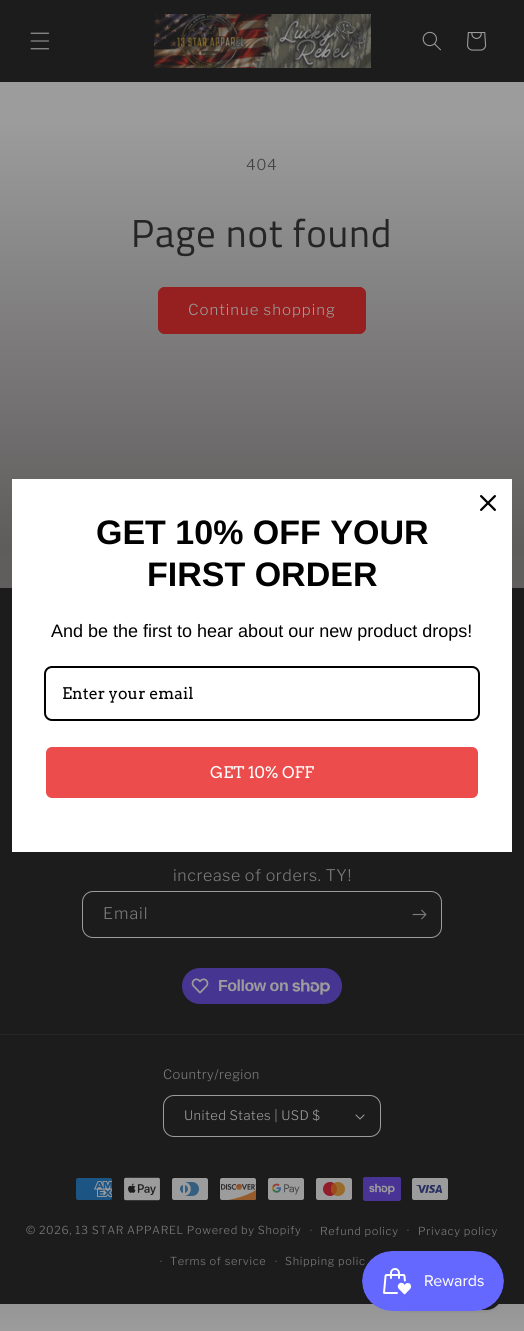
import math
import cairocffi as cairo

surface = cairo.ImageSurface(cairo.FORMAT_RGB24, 524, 1331)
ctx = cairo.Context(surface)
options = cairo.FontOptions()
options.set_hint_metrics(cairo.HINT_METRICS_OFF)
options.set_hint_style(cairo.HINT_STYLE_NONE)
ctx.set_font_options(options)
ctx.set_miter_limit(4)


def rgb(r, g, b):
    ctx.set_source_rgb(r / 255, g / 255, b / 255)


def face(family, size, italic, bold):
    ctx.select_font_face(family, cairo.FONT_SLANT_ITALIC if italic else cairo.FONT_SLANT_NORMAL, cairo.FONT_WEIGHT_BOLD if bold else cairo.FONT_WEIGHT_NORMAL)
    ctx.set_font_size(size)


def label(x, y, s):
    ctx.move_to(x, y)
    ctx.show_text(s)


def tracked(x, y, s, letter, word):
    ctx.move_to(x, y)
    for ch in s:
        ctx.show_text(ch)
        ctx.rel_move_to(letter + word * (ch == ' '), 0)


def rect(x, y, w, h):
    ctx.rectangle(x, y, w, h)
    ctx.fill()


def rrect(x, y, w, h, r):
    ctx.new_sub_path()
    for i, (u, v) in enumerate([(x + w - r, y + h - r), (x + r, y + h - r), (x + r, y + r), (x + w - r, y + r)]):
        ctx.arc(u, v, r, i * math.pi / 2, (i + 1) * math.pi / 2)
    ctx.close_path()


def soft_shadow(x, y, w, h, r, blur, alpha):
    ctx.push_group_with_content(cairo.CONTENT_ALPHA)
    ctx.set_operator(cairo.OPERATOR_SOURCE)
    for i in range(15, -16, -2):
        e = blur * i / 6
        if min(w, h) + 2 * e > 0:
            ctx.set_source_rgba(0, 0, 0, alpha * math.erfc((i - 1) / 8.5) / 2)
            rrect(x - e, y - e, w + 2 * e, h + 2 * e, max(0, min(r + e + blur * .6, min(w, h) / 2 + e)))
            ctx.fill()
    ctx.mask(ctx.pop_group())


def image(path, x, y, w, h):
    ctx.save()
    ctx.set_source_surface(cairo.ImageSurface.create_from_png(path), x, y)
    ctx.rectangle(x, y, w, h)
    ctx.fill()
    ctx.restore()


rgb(255, 255, 255)
ctx.paint()
gradient = cairo.LinearGradient(262, 1331, 262, 0)
gradient.add_color_stop_rgba(0, 0.612, 0.612, 0.612, 1)
gradient.add_color_stop_rgba(0.17, 0.392, 0.388, 0.388, 1)
gradient.add_color_stop_rgba(0.37, 0.612, 0.612, 0.612, 1)
gradient.add_color_stop_rgba(0.46, 0.392, 0.388, 0.388, 1)
gradient.add_color_stop_rgba(0.59, 0.373, 0.361, 0.361, 1)
gradient.add_color_stop_rgba(0.91, 0.612, 0.612, 0.612, 1)
gradient.add_color_stop_rgba(1, 0.612, 0.612, 0.612, 1)
ctx.set_source(gradient)
rect(0, 82, 524, 1249)
rgb(28, 28, 28)
rect(0, 0, 524, 82)
image('image0.png', 30, 32, 20, 18)
image('image1.png', 154, 14, 217, 54)
image('image2.png', 422, 31, 19, 20)
image('image3.png', 467, 32, 20, 19)
face('Libre Franklin Light', 15, 0, 0)
rgb(65, 65, 65)
tracked(246, 170, '404', 0.6, 0)
face('Titillium Web', 39, 0, 0)
rgb(37, 37, 37)
tracked(131, 247, 'Page not found', 0.75, 0)
rgb(150, 31, 31)
rrect(158, 287, 208, 47, 7)
ctx.fill()
rrect(158.5, 287.5, 207, 46, 6.5)
ctx.set_line_width(1)
ctx.stroke()
face('Libre Franklin Light', 15, 0, 0)
rgb(156, 156, 156)
tracked(188, 315, 'Continue shopping', 1, 0)
rgb(28, 28, 28)
rect(0, 588, 524, 716)
rgb(255, 255, 255)
rect(12, 479, 500, 373)
image('image4.png', 480, 495, 16, 16)
face('Liberation Sans', 34, 0, 1)
rgb(0, 0, 0)
label(96, 544, 'GET 10% OFF YOUR')
label(147, 586, 'FIRST ORDER')
face('Liberation Sans', 18, 0, 0)
label(51, 637, 'And be the first to hear about our new product drops!')
rrect(45, 667, 434, 53, 7)
ctx.set_line_width(2)
ctx.stroke()
face('Arvo', 16, 0, 0)
label(62, 699, 'Enter your email')
rgb(236, 76, 75)
rrect(45, 746, 434, 53, 7)
ctx.fill_preserve()
rgb(255, 255, 255)
ctx.stroke()
label(210, 778, 'GET 10% OFF')
face('Libre Franklin Light', 16, 0, 0)
rgb(124, 124, 124)
tracked(173, 881, 'increase of orders. TY!', 0.6, 0)
rrect(82.5, 891.5, 359, 46, 10.5)
rgb(156, 156, 156)
ctx.set_line_width(1)
ctx.stroke()
rgb(124, 124, 124)
tracked(103, 919, 'Email', 1, 0)
image('image5.png', 412, 909, 15, 11)
rgb(70, 54, 146)
rrect(182, 968, 160, 36, 18)
ctx.fill()
image('image6.png', 191, 978, 18, 16)
face('Liberation Sans', 16, 0, 1)
rgb(156, 156, 156)
tracked(218, 991, 'Follow on', -0.5, 0)
image('image7.png', 292, 979, 38, 16)
rgb(38, 38, 38)
rect(0, 1034, 524, 1)
face('Libre Franklin Light', 13, 0, 0)
rgb(124, 124, 124)
tracked(163, 1079, 'Country/region', 0.4, 0)
image('image8.png', 355, 1114, 10, 6)
rrect(163.5, 1095.5, 217, 41, 10.5)
rgb(156, 156, 156)
ctx.stroke()
tracked(184, 1120, 'United States | USD $', 0.4, 0)
image('image9.png', 76, 1178, 36, 22)
image('image10.png', 124, 1177, 36, 24)
image('image11.png', 172, 1178, 36, 22)
image('image12.png', 220, 1178, 37, 22)
image('image13.png', 268, 1178, 36, 22)
image('image14.png', 316, 1178, 36, 22)
image('image15.png', 363, 1177, 38, 24)
image('image16.png', 412, 1178, 36, 22)
face('Libre Franklin Light', 11, 0, 0)
rgb(124, 124, 124)
tracked(26, 1234, '© 2026, 13 STAR APPAREL Powered by Shopify', 0.7, 0)
face('Libre Franklin Light', 10, 0, 0)
tracked(310, 1234, '·', 0.7, 0)
face('Libre Franklin Light', 11, 0, 0)
tracked(320, 1235, 'Refund policy', 0.7, 0)
face('Libre Franklin Light', 10, 0, 0)
tracked(407, 1234, '·', 0.7, 0)
face('Libre Franklin Light', 11, 0, 0)
tracked(418, 1235, 'Privacy policy', 0.7, 0)
face('Libre Franklin Light', 10, 0, 0)
tracked(160, 1265, '·', 0.7, 0)
face('Libre Franklin Light', 11, 0, 0)
tracked(170, 1265, 'Terms of service', 0.7, 0)
face('Libre Franklin Light', 10, 0, 0)
tracked(275, 1265, '·', 0.7, 0)
face('Libre Franklin Light', 11, 0, 0)
tracked(285, 1265, 'Shipping polic', 0.7, 0)
rgb(28, 28, 28)
soft_shadow(389, 1250, 113, 60, 16, 2.5, 0.15)
rgb(28, 28, 28)
rrect(389, 1250, 113, 60, 16)
ctx.fill()
image('image17.png', 362, 1251, 142, 60)
surface.write_to_png('render.png')
